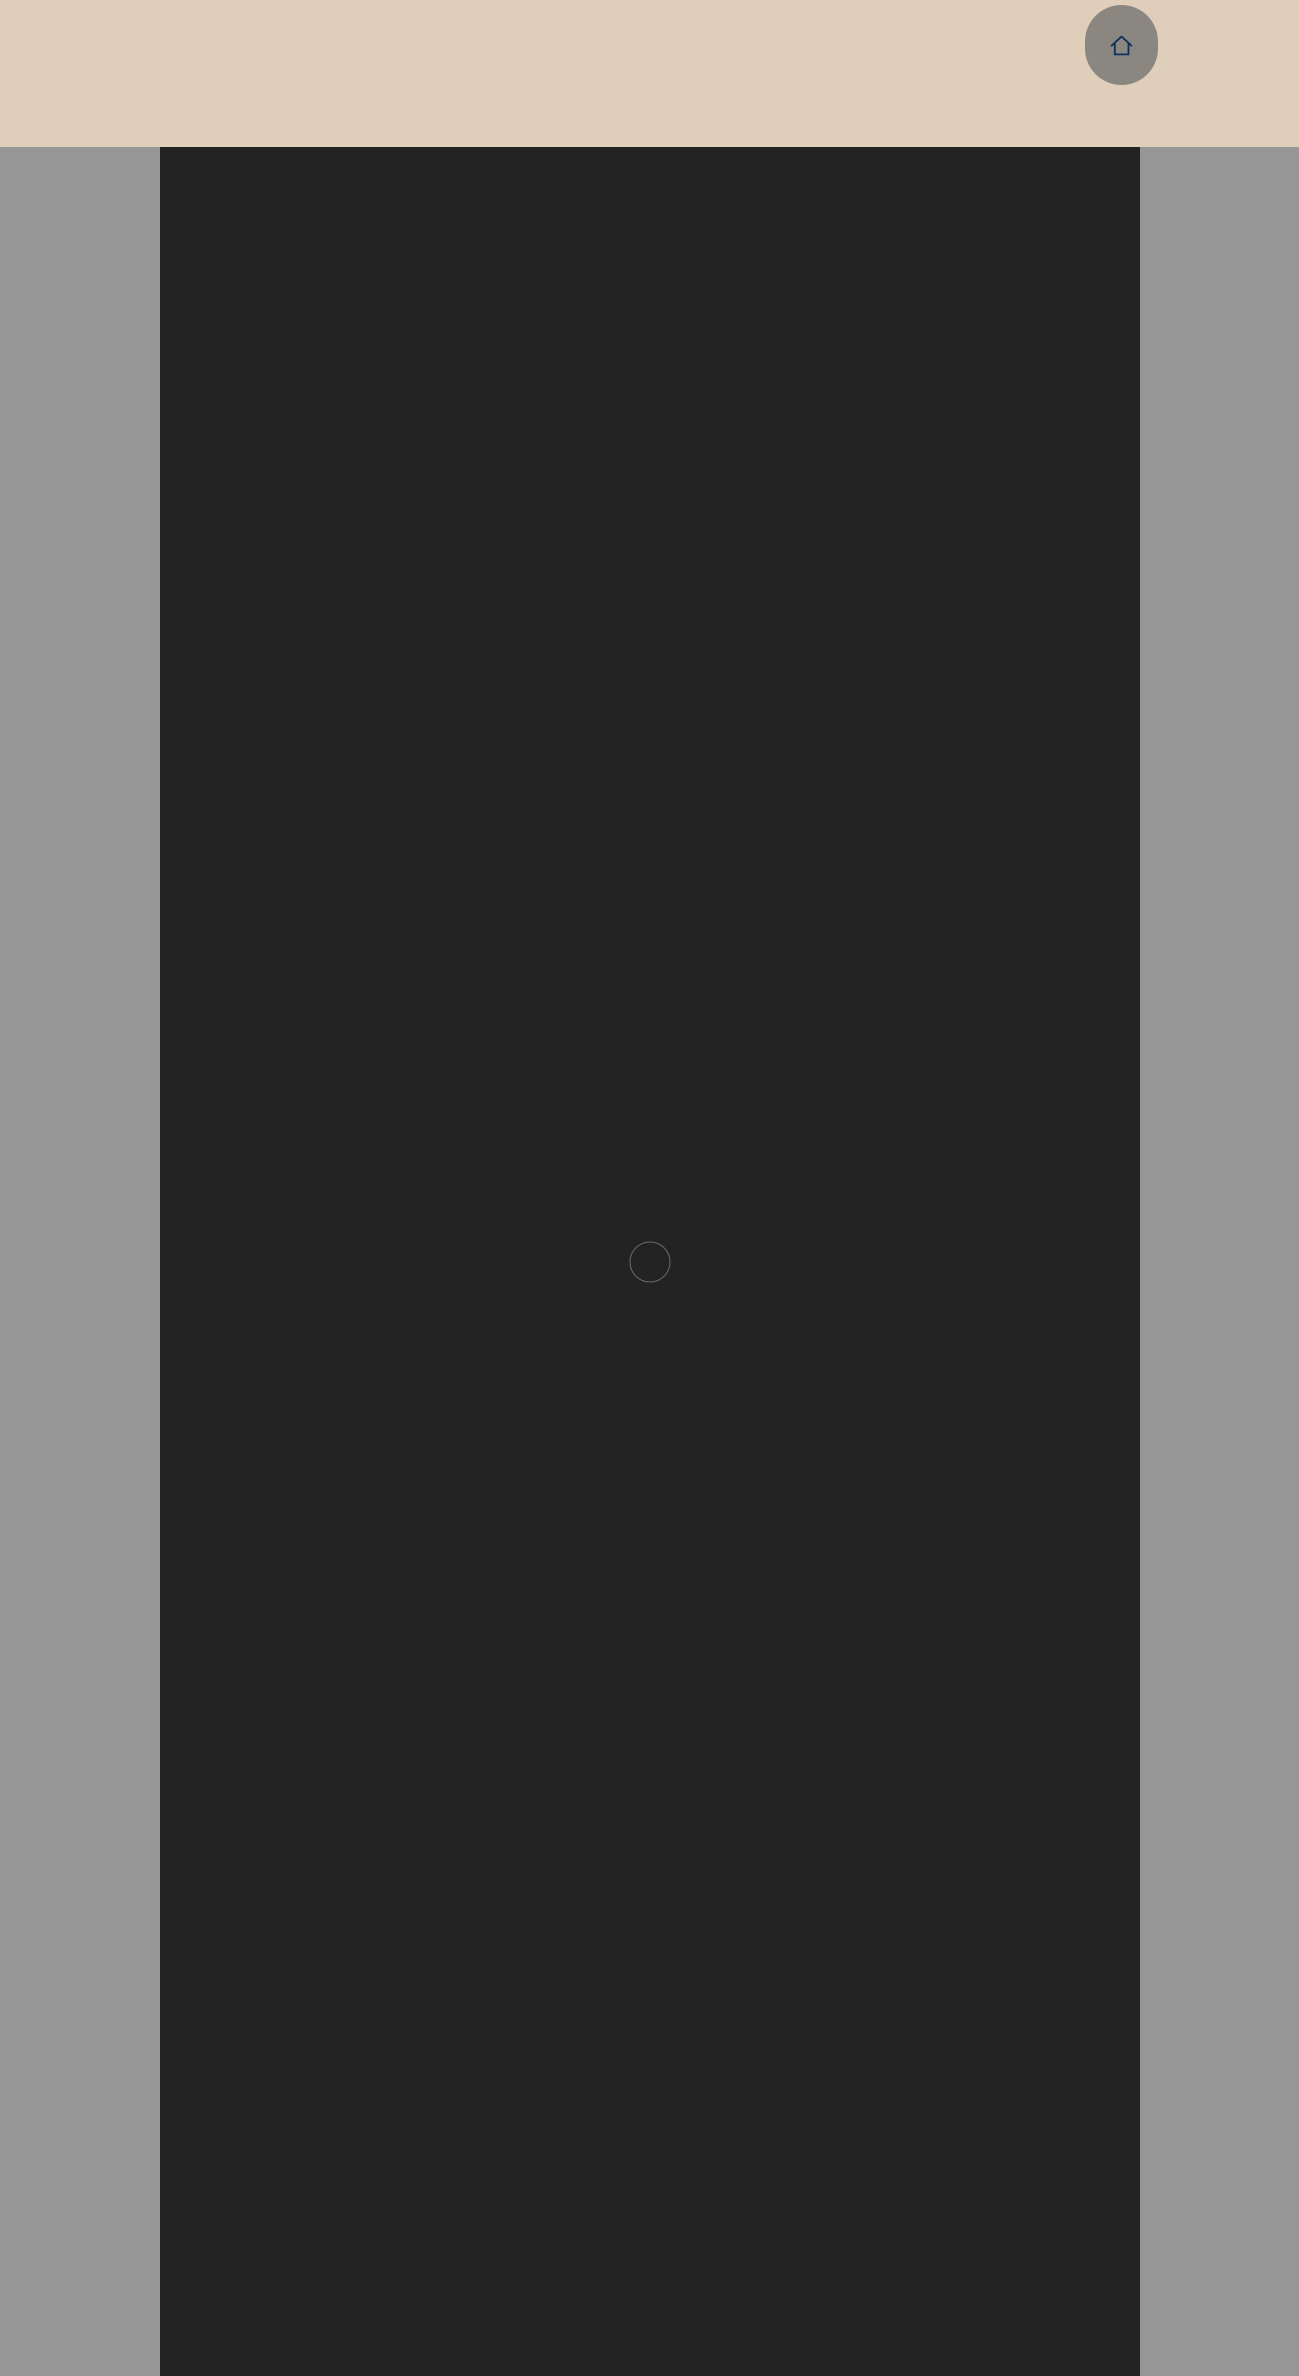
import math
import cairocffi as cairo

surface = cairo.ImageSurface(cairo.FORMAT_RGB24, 1299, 2376)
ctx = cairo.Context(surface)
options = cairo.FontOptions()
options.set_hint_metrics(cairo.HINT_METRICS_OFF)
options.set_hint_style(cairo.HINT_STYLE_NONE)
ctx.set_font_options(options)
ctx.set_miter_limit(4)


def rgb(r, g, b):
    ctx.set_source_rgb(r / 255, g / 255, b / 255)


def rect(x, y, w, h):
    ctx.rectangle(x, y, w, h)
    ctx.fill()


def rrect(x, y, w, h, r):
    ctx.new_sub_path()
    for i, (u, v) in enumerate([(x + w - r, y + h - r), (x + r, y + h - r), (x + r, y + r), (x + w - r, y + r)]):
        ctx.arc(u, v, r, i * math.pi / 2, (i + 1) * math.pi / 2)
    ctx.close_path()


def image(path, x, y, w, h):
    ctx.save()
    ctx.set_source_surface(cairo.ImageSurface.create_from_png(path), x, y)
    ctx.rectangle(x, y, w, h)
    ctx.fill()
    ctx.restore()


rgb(150, 150, 150)
ctx.paint()
rgb(223, 207, 186)
rect(0, 0, 1299, 147)
rgb(138, 134, 128)
rrect(1085, 5, 73, 80, 36.5)
ctx.fill()
image('image0.png', 1110, 35, 23, 21)
rgb(35, 35, 35)
rect(160, 147, 980, 2229)
ctx.arc(650, 1262, 20, 0, 2 * math.pi)
rgb(107, 107, 107)
ctx.set_line_width(1)
ctx.stroke()
surface.write_to_png('render.png')
